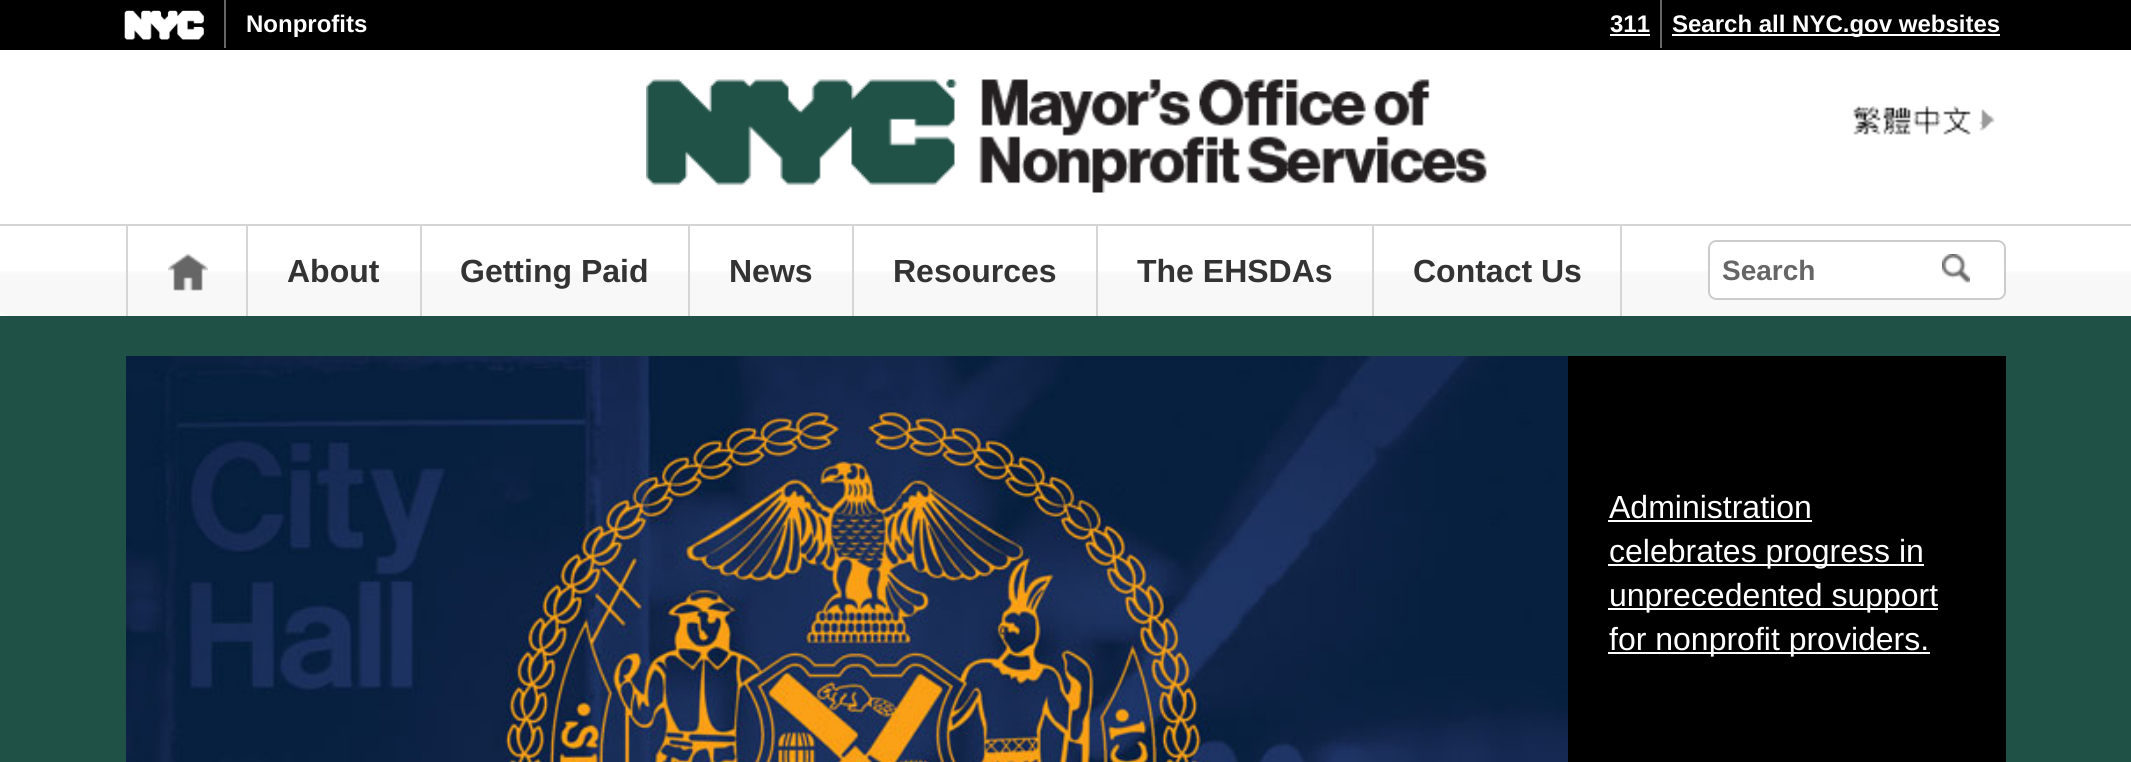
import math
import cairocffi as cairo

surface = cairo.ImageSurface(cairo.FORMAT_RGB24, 2131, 762)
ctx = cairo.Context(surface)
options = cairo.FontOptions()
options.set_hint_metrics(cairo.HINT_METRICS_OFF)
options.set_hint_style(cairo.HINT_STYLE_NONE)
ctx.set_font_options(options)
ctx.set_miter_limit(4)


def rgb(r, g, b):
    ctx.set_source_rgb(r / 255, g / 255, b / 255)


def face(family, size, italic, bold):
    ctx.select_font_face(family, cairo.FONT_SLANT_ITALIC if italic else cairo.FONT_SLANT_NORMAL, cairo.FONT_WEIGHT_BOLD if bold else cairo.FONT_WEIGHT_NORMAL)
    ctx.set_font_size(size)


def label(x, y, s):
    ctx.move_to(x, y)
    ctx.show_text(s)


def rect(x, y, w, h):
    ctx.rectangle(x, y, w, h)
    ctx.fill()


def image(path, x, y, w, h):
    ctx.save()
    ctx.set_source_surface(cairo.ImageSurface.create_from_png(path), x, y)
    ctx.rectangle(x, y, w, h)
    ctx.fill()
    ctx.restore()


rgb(255, 255, 255)
ctx.paint()
image('image0.png', 0, 271, 2131, 45)
rgb(0, 0, 0)
rect(0, 0, 2131, 50)
image('image1.png', 124, 10, 80, 30)
image('image2.png', 224, 0, 2, 48)
face('Liberation Sans', 24, 0, 1)
rgb(255, 255, 255)
label(246, 32, 'Nonprofits')
label(1610, 32, '311')
rect(1610, 34, 40, 2)
image('image2.png', 1660, 0, 2, 48)
rect(1672, 34, 328, 2)
label(1672, 32, 'Search all NYC.gov websites')
rgb(213, 213, 213)
rect(0, 224, 2131, 2)
image('image3.png', 646, 79, 841, 114)
image('image4.png', 1853, 106, 142, 29)
rect(246, 226, 2, 90)
rect(126, 226, 2, 90)
image('image5.png', 168, 254, 40, 37)
rect(420, 226, 2, 90)
face('Liberation Sans', 32, 0, 1)
rgb(51, 51, 51)
label(287, 282, 'About')
rgb(213, 213, 213)
rect(688, 226, 2, 90)
rgb(51, 51, 51)
label(460, 282, 'Getting Paid')
rgb(213, 213, 213)
rect(852, 226, 2, 90)
rgb(51, 51, 51)
label(729, 282, 'News')
rgb(213, 213, 213)
rect(1096, 226, 2, 90)
rgb(51, 51, 51)
label(893, 282, 'Resources')
rgb(213, 213, 213)
rect(1372, 226, 2, 90)
rgb(51, 51, 51)
label(1137, 282, 'The EHSDAs')
rgb(213, 213, 213)
rect(1620, 226, 2, 90)
rgb(51, 51, 51)
label(1413, 282, 'Contact Us')
rgb(255, 255, 255)
ctx.new_path()
ctx.move_to(1716, 240)
ctx.line_to(1942, 240)
ctx.line_to(1942, 300)
ctx.line_to(1716, 300)
ctx.curve_to(1711.5, 300, 1708, 296.5, 1708, 292)
ctx.line_to(1708, 248)
ctx.curve_to(1708, 243.5, 1711.5, 240, 1716, 240)
ctx.close_path()
ctx.fill()
ctx.save()
ctx.rectangle(1692, 240, 250, 60)
ctx.clip()
rgb(204, 204, 204)
ctx.set_fill_rule(cairo.FILL_RULE_EVEN_ODD)
ctx.new_path()
ctx.move_to(1716, 240)
ctx.line_to(1952, 240)
ctx.line_to(1952, 300)
ctx.line_to(1716, 300)
ctx.curve_to(1712, 300, 1708, 296, 1708, 292)
ctx.line_to(1708, 248)
ctx.curve_to(1708, 244, 1712, 240, 1716, 240)
ctx.close_path()
ctx.move_to(1716, 242)
ctx.line_to(1952, 242)
ctx.line_to(1952, 298)
ctx.line_to(1716, 298)
ctx.curve_to(1713, 298, 1710, 295, 1710, 292)
ctx.line_to(1710, 248)
ctx.curve_to(1710, 245, 1713, 242, 1716, 242)
ctx.close_path()
ctx.fill()
ctx.restore()
face('Liberation Sans', 28, 0, 1)
rgb(102, 102, 102)
label(1722, 280, 'Search')
rgb(255, 255, 255)
ctx.new_path()
ctx.move_to(1942, 240)
ctx.line_to(1998, 240)
ctx.curve_to(2002.5, 240, 2006, 243.5, 2006, 248)
ctx.line_to(2006, 292)
ctx.curve_to(2006, 296.5, 2002.5, 300, 1998, 300)
ctx.line_to(1942, 300)
ctx.close_path()
ctx.fill()
image('image6.png', 1942, 254, 28, 29)
rgb(204, 204, 204)
ctx.set_fill_rule(cairo.FILL_RULE_EVEN_ODD)
ctx.new_path()
ctx.move_to(1942, 240)
ctx.line_to(1998, 240)
ctx.curve_to(2002, 240, 2006, 244, 2006, 248)
ctx.line_to(2006, 292)
ctx.curve_to(2006, 296, 2002, 300, 1998, 300)
ctx.line_to(1942, 300)
ctx.close_path()
ctx.move_to(1942, 242)
ctx.line_to(1998, 242)
ctx.curve_to(2001, 242, 2004, 245, 2004, 248)
ctx.line_to(2004, 292)
ctx.curve_to(2004, 295, 2001, 298, 1998, 298)
ctx.line_to(1942, 298)
ctx.close_path()
ctx.fill()
rgb(31, 81, 70)
rect(0, 316, 2131, 446)
rgb(0, 0, 0)
rect(1568, 356, 438, 406)
image('image7.png', 126, 356, 1442, 406)
face('Liberation Sans', 32, 0, 0)
rgb(255, 255, 255)
label(1609, 518, 'Administration')
rect(1608, 520, 204, 2)
rect(1608, 564, 316, 2)
label(1609, 562, 'celebrates progress in')
rect(1608, 608, 330, 2)
label(1609, 606, 'unprecedented support')
rect(1608, 652, 322, 2)
label(1609, 650, 'for nonprofit providers.')
surface.write_to_png('render.png')
